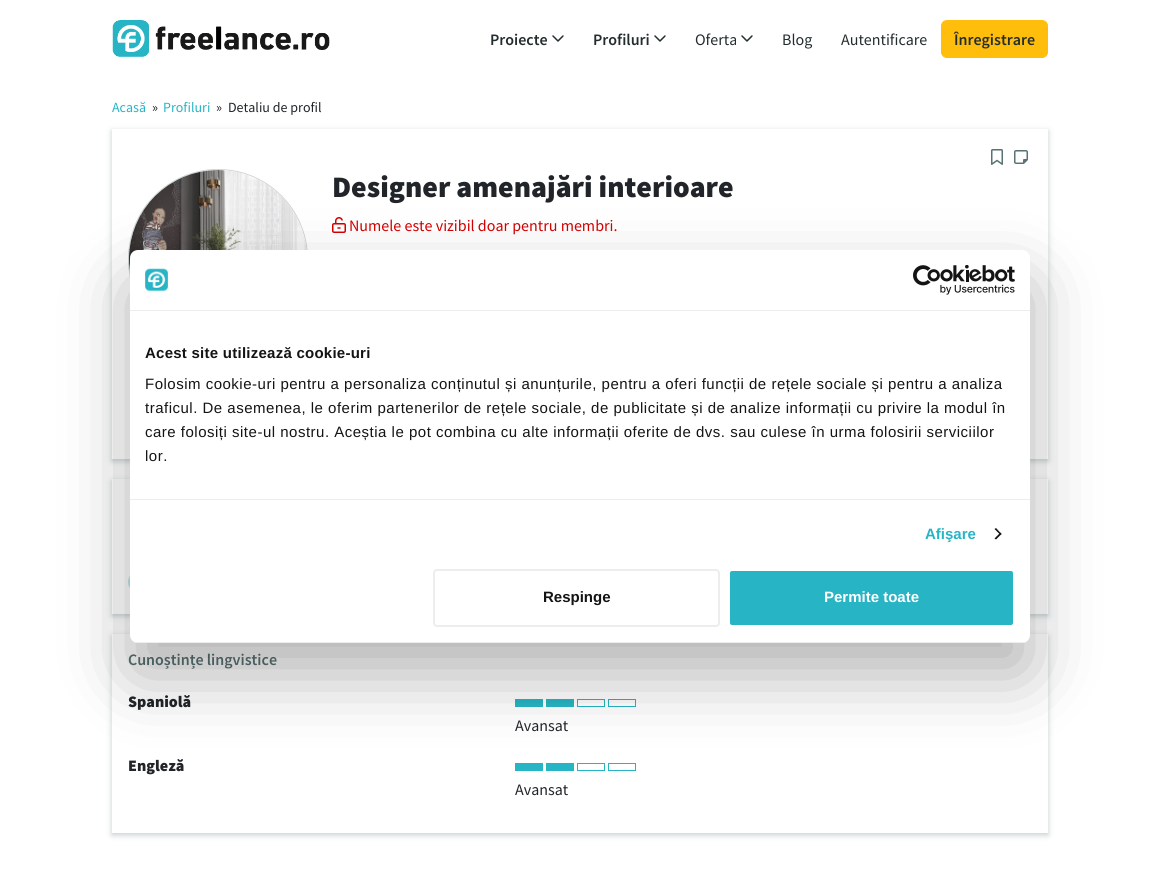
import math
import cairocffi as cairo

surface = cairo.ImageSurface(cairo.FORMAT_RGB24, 1160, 892)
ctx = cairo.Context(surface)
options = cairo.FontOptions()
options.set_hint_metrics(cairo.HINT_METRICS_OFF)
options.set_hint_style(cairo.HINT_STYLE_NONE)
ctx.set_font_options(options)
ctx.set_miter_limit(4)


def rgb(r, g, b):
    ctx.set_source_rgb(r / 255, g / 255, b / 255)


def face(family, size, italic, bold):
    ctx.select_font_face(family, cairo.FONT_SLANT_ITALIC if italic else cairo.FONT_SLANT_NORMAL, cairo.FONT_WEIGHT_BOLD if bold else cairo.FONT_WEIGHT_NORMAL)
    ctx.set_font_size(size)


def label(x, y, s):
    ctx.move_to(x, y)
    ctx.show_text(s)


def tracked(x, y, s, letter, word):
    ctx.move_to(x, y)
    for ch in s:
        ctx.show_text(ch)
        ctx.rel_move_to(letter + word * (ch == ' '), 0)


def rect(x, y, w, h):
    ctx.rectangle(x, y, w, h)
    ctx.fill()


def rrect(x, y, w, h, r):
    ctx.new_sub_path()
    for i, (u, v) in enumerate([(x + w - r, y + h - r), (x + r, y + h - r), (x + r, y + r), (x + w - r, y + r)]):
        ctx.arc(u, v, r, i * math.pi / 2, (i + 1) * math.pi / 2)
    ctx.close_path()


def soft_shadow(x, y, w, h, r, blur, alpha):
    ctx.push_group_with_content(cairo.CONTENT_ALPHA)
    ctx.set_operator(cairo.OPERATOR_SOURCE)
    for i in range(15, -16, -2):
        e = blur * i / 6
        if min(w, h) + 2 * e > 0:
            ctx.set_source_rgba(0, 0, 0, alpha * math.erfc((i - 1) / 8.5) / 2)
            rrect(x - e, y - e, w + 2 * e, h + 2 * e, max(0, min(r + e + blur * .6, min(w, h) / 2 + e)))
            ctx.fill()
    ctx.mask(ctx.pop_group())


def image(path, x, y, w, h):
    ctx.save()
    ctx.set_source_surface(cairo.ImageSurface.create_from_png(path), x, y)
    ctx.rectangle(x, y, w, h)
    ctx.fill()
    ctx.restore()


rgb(255, 255, 255)
ctx.paint()
image('image0.png', 112, 20, 218, 37)
face('Source Sans Pro SemiBold', 16, 0, 0)
rgb(36, 45, 46)
label(490, 45, 'Proiecte')
image('image1.png', 552, 35, 12, 7)
label(593, 45, 'Profiluri')
image('image1.png', 654, 35, 12, 7)
face('Source Sans Pro', 16, 0, 0)
label(695, 45, 'Oferta')
image('image1.png', 741, 35, 12, 7)
label(782, 45, 'Blog')
label(841, 45, 'Autentificare')
rgb(255, 190, 11)
rrect(941.5, 20.5, 106, 37, 5.5)
ctx.fill_preserve()
ctx.set_line_width(1)
ctx.stroke()
face('Source Sans Pro SemiBold', 16, 0, 0)
rgb(36, 45, 46)
label(954, 45, 'Înregistrare')
face('Source Sans Pro', 14, 0, 0)
rgb(39, 180, 196)
label(112, 112, 'Acasă')
rgb(33, 37, 41)
label(152, 112, '»')
rgb(39, 180, 196)
label(163, 112, 'Profiluri')
rgb(33, 37, 41)
label(216, 112, '»')
label(228, 112, 'Detaliu de profil')
ctx.save()
ctx.set_fill_rule(cairo.FILL_RULE_EVEN_ODD)
ctx.new_path()
ctx.move_to(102, 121)
ctx.line_to(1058, 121)
ctx.line_to(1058, 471)
ctx.line_to(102, 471)
ctx.close_path()
ctx.move_to(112, 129)
ctx.line_to(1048, 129)
ctx.line_to(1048, 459)
ctx.line_to(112, 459)
ctx.close_path()
ctx.clip()
rgb(90, 114, 115)
soft_shadow(112, 131, 936, 330, 0, 3, 0.35)
ctx.restore()
image('image2.png', 991, 149, 12, 16)
image('image3.png', 1014, 150, 14, 14)
ctx.arc(218, 259, 89.5, 0, 2 * math.pi)
rgb(205, 212, 213)
ctx.stroke()
image('image4.png', 129, 170, 178, 102)
face('Source Sans Pro Black', 29.75, 0, 0)
rgb(33, 37, 41)
label(332, 197, 'Designer amenajări interioare')
image('image5.png', 332, 217, 14, 16)
face('Source Sans Pro', 16, 0, 0)
rgb(213, 0, 0)
label(349, 231, 'Numele este vizibil doar pentru membri.')
ctx.save()
ctx.set_fill_rule(cairo.FILL_RULE_EVEN_ODD)
ctx.new_path()
ctx.move_to(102, 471)
ctx.line_to(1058, 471)
ctx.line_to(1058, 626)
ctx.line_to(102, 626)
ctx.close_path()
ctx.move_to(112, 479)
ctx.line_to(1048, 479)
ctx.line_to(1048, 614)
ctx.line_to(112, 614)
ctx.close_path()
ctx.clip()
rgb(90, 114, 115)
soft_shadow(112, 481, 936, 135, 0, 3, 0.35)
ctx.restore()
rgb(189, 232, 237)
ctx.new_path()
ctx.move_to(140, 570)
ctx.line_to(189, 570)
ctx.line_to(189, 594)
ctx.line_to(140, 594)
ctx.curve_to(133.5, 594, 128, 588.5, 128, 582)
ctx.curve_to(128, 575.5, 133.5, 570, 140, 570)
ctx.close_path()
ctx.fill()
ctx.save()
ctx.set_fill_rule(cairo.FILL_RULE_EVEN_ODD)
ctx.new_path()
ctx.move_to(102, 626)
ctx.line_to(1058, 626)
ctx.line_to(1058, 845)
ctx.line_to(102, 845)
ctx.close_path()
ctx.move_to(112, 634)
ctx.line_to(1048, 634)
ctx.line_to(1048, 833)
ctx.line_to(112, 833)
ctx.close_path()
ctx.clip()
rgb(90, 114, 115)
soft_shadow(112, 636, 936, 199, 0, 3, 0.35)
ctx.restore()
face('Source Sans Pro SemiBold', 16, 0, 0)
rgb(90, 114, 115)
label(128, 665, 'Cunoștințe lingvistice')
face('Source Sans Pro Black', 16, 0, 0)
rgb(33, 37, 41)
label(128, 707, 'Spaniolă')
rgb(39, 180, 196)
rect(515, 699, 28, 8)
rect(546, 699, 28, 8)
ctx.rectangle(577.5, 699.5, 27, 7)
ctx.stroke()
ctx.rectangle(608.5, 699.5, 27, 7)
ctx.stroke()
face('Source Sans Pro', 16, 0, 0)
rgb(33, 37, 41)
label(515, 731, 'Avansat')
face('Source Sans Pro Black', 16, 0, 0)
label(128, 771, 'Engleză')
rgb(39, 180, 196)
rect(515, 763, 28, 8)
rect(546, 763, 28, 8)
ctx.rectangle(577.5, 763.5, 27, 7)
ctx.stroke()
ctx.rectangle(608.5, 763.5, 27, 7)
ctx.stroke()
face('Source Sans Pro', 16, 0, 0)
rgb(33, 37, 41)
label(515, 795, 'Avansat')
rgb(0, 0, 0)
soft_shadow(130, 282, 900, 393, 8, 34, 0.3)
rgb(255, 255, 255)
rrect(130, 250, 900, 393, 8)
ctx.fill()
rgb(237, 237, 237)
rect(130, 310, 900, 1)
image('image6.png', 145, 268, 23, 24)
image('image7.png', 913, 265, 102, 30)
rect(130, 499, 900, 1)
face('Liberation Sans', 15, 0, 1)
rgb(20, 20, 20)
tracked(145, 358, 'Acest site utilizează cookie-uri', 0.25, 0)
face('Liberation Sans', 15, 0, 0)
tracked(145, 389, 'Folosim cookie-uri pentru a personaliza conținutul și anunțurile, pentru a oferi funcții de rețele sociale și pentru a analiza', 0.5, 0)
tracked(145, 413, 'traficul. De asemenea, le oferim partenerilor de rețele sociale, de publicitate și de analize informații cu privire la modul în', 0.5, 0)
tracked(145, 437, 'care folosiți site-ul nostru. Aceștia le pot combina cu alte informații oferite de dvs. sau culese în urma folosirii serviciilor', 0.5, 0)
tracked(145, 461, 'lor.', 0.5, 0)
face('Liberation Sans', 15, 0, 1)
rgb(39, 180, 196)
label(925, 539, 'Afişare')
rgb(20, 20, 20)
ctx.new_path()
ctx.move_to(996, 528)
ctx.line_to(1001.5, 534)
ctx.line_to(1000.5, 535)
ctx.line_to(994.5, 529)
ctx.close_path()
ctx.fill()
ctx.new_path()
ctx.move_to(1000.5, 532.5)
ctx.line_to(1001.5, 534)
ctx.line_to(996, 539.5)
ctx.line_to(994.5, 538.5)
ctx.close_path()
ctx.fill()
ctx.save()
rrect(130, 250, 900, 393, 8)
ctx.clip()
rgb(237, 237, 237)
rect(130, 642, 900, 1)
ctx.restore()
rrect(434, 570, 285, 56, 3)
rgb(237, 237, 237)
ctx.set_line_width(2)
ctx.stroke()
rgb(20, 20, 20)
label(543, 602, 'Respinge')
rgb(39, 180, 196)
rrect(729, 570, 285, 56, 3)
ctx.fill_preserve()
rgb(255, 255, 255)
ctx.stroke()
label(824, 602, 'Permite toate')
surface.write_to_png('render.png')
